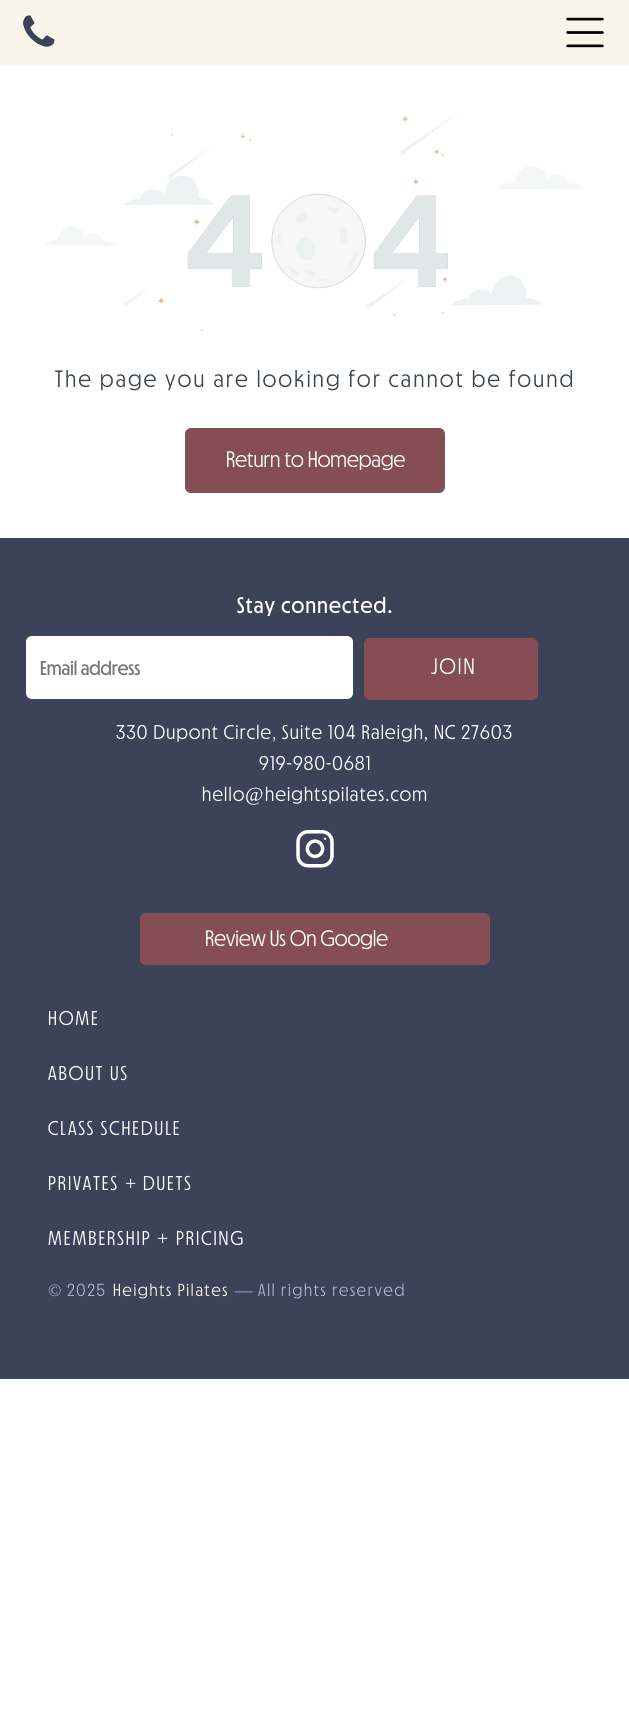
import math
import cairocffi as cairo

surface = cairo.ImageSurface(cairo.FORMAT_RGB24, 629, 1725)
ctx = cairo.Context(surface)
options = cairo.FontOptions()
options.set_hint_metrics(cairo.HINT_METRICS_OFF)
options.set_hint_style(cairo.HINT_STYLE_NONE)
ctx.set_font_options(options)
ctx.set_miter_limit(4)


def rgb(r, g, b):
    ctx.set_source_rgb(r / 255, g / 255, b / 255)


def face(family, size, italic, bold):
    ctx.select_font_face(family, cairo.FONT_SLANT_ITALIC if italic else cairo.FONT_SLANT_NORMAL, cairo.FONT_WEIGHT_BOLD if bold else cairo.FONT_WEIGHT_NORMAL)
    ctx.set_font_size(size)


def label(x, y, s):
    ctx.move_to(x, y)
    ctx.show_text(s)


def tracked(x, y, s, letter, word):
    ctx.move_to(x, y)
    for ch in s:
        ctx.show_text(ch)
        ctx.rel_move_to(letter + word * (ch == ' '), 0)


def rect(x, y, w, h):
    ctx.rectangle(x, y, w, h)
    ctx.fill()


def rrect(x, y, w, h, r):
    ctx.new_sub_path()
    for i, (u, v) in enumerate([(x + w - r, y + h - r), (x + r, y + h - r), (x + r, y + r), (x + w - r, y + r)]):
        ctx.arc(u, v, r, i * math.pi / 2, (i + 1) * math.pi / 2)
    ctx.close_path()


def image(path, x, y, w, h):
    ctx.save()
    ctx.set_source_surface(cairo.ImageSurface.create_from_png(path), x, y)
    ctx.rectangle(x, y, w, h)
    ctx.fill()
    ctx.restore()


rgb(255, 255, 255)
ctx.paint()
rgb(249, 246, 233)
rect(0, 0, 629, 65)
image('image0.png', 23, 15, 32, 32)
image('image1.png', 566, 17, 38, 31)
image('image2.png', 45, 112, 539, 219)
face('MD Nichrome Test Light', 23.75, 0, 0)
rgb(60, 67, 88)
tracked(55, 387, 'The page you are looking for cannot be found', 2.4, 0)
rgb(133, 78, 84)
rrect(185.5, 428.5, 259, 64, 5.5)
ctx.fill_preserve()
ctx.set_line_width(1)
ctx.stroke()
face('MD Nichrome Test Light', 22.5, 0, 0)
rgb(255, 255, 255)
label(226, 467, 'Return to Homepage')
rgb(60, 67, 88)
rect(0, 538, 629, 841)
face('MD Nichrome Test', 22.5, 0, 0)
rgb(255, 255, 255)
tracked(237, 613, 'Stay connected.', 1.25, 0)
rrect(26.5, 636.5, 326, 62, 5.5)
ctx.fill_preserve()
ctx.stroke()
face('MD Nichrome Test', 20, 0, 0)
rgb(117, 117, 117)
label(40, 675, 'Email address')
rgb(133, 78, 84)
rrect(364.5, 638.5, 173, 61, 5.5)
ctx.fill_preserve()
ctx.stroke()
face('MD Nichrome Test Light', 22.5, 0, 0)
rgb(255, 255, 255)
tracked(431, 674, 'JOIN', 2, 0)
face('MD Nichrome Test Light', 20, 0, 0)
tracked(116, 739, '330 Dupont Circle, Suite 104 Raleigh, NC 27603', 1.25, 0)
tracked(259, 770, '919-980-0681', 1.25, 0)
tracked(202, 801, 'hello', 1.25, 0)
face('Liberation Serif', 20, 0, 0)
tracked(245, 801, '@', 1.25, 0)
face('MD Nichrome Test Light', 20, 0, 0)
tracked(265, 801, 'heightspilates.com', 1.25, 0)
image('image3.png', 296, 830, 38, 38)
rgb(133, 78, 84)
rrect(140.5, 913.5, 349, 51, 5.5)
ctx.fill_preserve()
ctx.stroke()
face('MD Nichrome Test Light', 22.5, 0, 0)
rgb(255, 255, 255)
label(205, 946, 'Review Us On Google')
face('MD Nichrome Test Light', 20, 0, 0)
tracked(48, 1025, 'HOME', 2, 0)
tracked(48, 1080, 'ABOUT US', 2, 0)
tracked(48, 1135, 'CLASS SCHEDULE', 2, 0)
tracked(48, 1190, 'PRIVATES', 2, 0)
face('Liberation Serif', 20, 0, 0)
tracked(125, 1190, '+', 2, 0)
face('MD Nichrome Test Light', 20, 0, 0)
tracked(143, 1190, 'DUETS', 2, 0)
tracked(48, 1245, 'MEMBERSHIP', 2, 0)
face('Liberation Serif', 20, 0, 0)
tracked(157, 1245, '+', 2, 0)
face('MD Nichrome Test Light', 20, 0, 0)
tracked(176, 1245, 'PRICING', 2, 0)
face('Liberation Serif', 17.5, 0, 0)
rgb(172, 174, 213)
tracked(48, 1296, '©', 1.75, 0)
face('MD Nichrome Test Light', 17.5, 0, 0)
tracked(67, 1296, '2025', 1.75, 0)
rgb(249, 246, 233)
tracked(113, 1296, 'Heights Pilates', 1.75, 0)
face('Liberation Serif', 17.5, 0, 0)
rgb(172, 174, 213)
tracked(235, 1296, '—', 1.75, 0)
face('MD Nichrome Test Light', 17.5, 0, 0)
tracked(258, 1296, 'All rights reserved', 1.75, 0)
surface.write_to_png('render.png')
